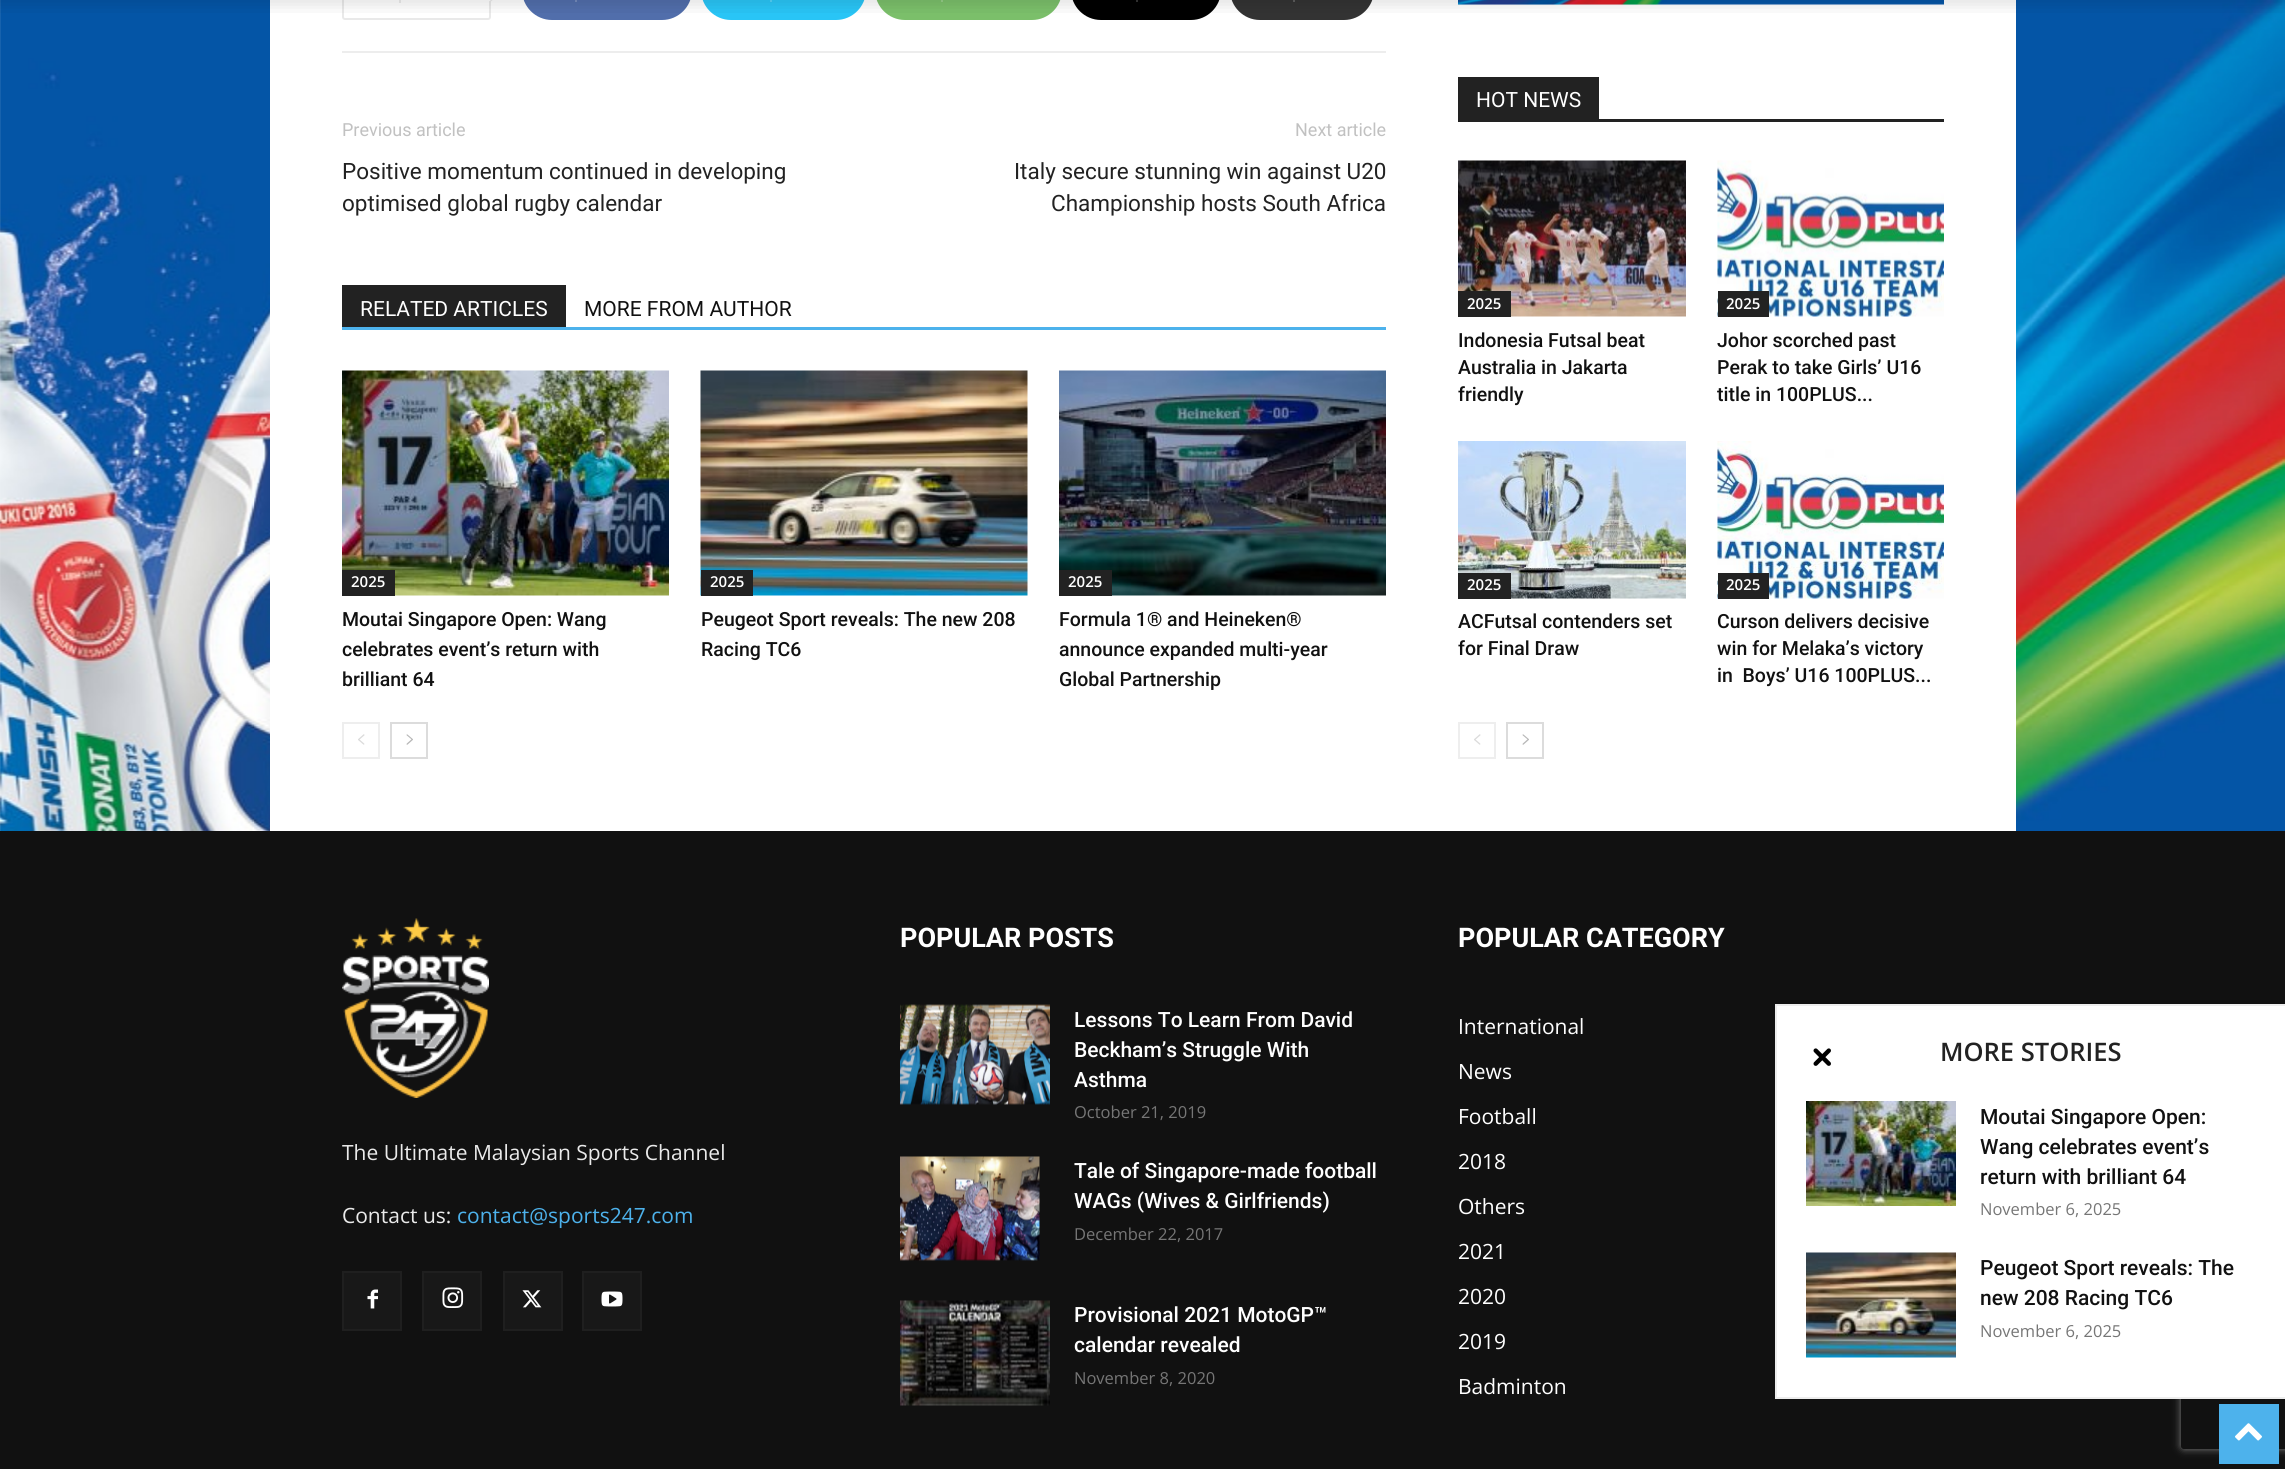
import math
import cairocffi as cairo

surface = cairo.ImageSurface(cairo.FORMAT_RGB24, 2285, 1469)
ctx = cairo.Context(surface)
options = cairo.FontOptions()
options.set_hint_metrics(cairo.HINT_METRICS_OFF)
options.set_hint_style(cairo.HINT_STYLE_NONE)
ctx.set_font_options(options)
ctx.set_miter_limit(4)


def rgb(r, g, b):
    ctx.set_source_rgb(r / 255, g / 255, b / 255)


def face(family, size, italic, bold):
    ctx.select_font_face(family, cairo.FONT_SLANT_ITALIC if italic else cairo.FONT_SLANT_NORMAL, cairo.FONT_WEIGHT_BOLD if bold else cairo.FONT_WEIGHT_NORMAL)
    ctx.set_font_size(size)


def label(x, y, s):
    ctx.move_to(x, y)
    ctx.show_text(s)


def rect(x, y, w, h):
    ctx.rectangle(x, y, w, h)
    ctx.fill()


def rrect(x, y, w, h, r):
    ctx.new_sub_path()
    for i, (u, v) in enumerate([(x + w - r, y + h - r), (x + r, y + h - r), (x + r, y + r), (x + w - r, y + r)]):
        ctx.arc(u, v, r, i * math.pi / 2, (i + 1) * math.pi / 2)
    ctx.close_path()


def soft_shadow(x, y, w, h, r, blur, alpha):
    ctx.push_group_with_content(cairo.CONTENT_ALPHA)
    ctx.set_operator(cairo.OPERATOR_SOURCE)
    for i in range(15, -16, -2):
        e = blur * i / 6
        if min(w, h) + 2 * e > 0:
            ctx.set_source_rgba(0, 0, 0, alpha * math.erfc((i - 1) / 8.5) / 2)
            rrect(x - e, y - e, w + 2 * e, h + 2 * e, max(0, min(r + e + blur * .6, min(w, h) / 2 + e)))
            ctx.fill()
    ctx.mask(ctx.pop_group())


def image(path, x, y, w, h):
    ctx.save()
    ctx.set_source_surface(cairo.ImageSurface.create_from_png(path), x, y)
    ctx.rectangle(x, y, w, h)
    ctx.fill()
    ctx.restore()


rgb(255, 255, 255)
ctx.paint()
image('image0.png', 0, 0, 2285, 831)
rgb(255, 255, 255)
rect(270, 0, 1746, 831)
rrect(343, -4, 147, 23, 2)
rgb(233, 233, 233)
ctx.stroke()
rgb(235, 235, 235)
rect(399, 0, 2, 3)
rgb(233, 233, 233)
ctx.new_path()
ctx.move_to(489, 3)
ctx.line_to(489, -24)
ctx.line_to(505.5, -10.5)
ctx.close_path()
ctx.fill()
rgb(255, 255, 255)
ctx.new_path()
ctx.move_to(489, 1.5)
ctx.line_to(489, -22.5)
ctx.line_to(504, -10.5)
ctx.close_path()
ctx.fill()
rgb(81, 110, 171)
ctx.new_path()
ctx.move_to(575, -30)
ctx.line_to(662, -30)
ctx.curve_to(678.5, -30, 692, -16.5, 692, 0)
ctx.line_to(692, -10)
ctx.curve_to(692, 6.5, 678.5, 20, 662, 20)
ctx.line_to(575, 20)
ctx.close_path()
ctx.fill()
ctx.new_path()
ctx.move_to(552, -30)
ctx.line_to(584, -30)
ctx.line_to(584, 20)
ctx.line_to(552, 20)
ctx.curve_to(535.5, 20, 522, 6.5, 522, -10)
ctx.line_to(522, 0)
ctx.curve_to(522, -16.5, 535.5, -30, 552, -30)
ctx.close_path()
ctx.fill()
rgb(116, 139, 188)
rect(575, 0, 2, 2)
rgb(41, 197, 246)
ctx.new_path()
ctx.move_to(770, -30)
ctx.line_to(836, -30)
ctx.curve_to(852.5, -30, 866, -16.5, 866, 0)
ctx.line_to(866, -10)
ctx.curve_to(866, 6.5, 852.5, 20, 836, 20)
ctx.line_to(770, 20)
ctx.close_path()
ctx.fill()
ctx.new_path()
ctx.move_to(731, -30)
ctx.line_to(779, -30)
ctx.line_to(779, 20)
ctx.line_to(731, 20)
ctx.curve_to(714.5, 20, 701, 6.5, 701, -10)
ctx.line_to(701, 0)
ctx.curve_to(701, -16.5, 714.5, -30, 731, -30)
ctx.close_path()
ctx.fill()
rgb(84, 209, 248)
rect(770, 0, 2, 2)
rgb(123, 191, 106)
ctx.new_path()
ctx.move_to(941, -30)
ctx.line_to(1032, -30)
ctx.curve_to(1048.5, -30, 1062, -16.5, 1062, 0)
ctx.line_to(1062, -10)
ctx.curve_to(1062, 6.5, 1048.5, 20, 1032, 20)
ctx.line_to(941, 20)
ctx.close_path()
ctx.fill()
ctx.new_path()
ctx.move_to(905, -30)
ctx.line_to(950, -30)
ctx.line_to(950, 20)
ctx.line_to(905, 20)
ctx.curve_to(888.5, 20, 875, 6.5, 875, -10)
ctx.line_to(875, 0)
ctx.curve_to(875, -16.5, 888.5, -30, 905, -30)
ctx.close_path()
ctx.fill()
rgb(149, 204, 136)
rect(941, 0, 2, 2)
rgb(0, 0, 0)
ctx.new_path()
ctx.move_to(1136, -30)
ctx.line_to(1191, -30)
ctx.curve_to(1207.5, -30, 1221, -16.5, 1221, 0)
ctx.line_to(1221, -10)
ctx.curve_to(1221, 6.5, 1207.5, 20, 1191, 20)
ctx.line_to(1136, 20)
ctx.close_path()
ctx.fill()
ctx.new_path()
ctx.move_to(1101, -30)
ctx.line_to(1145, -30)
ctx.line_to(1145, 20)
ctx.line_to(1101, 20)
ctx.curve_to(1084.5, 20, 1071, 6.5, 1071, -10)
ctx.line_to(1071, 0)
ctx.curve_to(1071, -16.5, 1084.5, -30, 1101, -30)
ctx.close_path()
ctx.fill()
rgb(51, 51, 51)
rect(1136, 0, 2, 2)
ctx.new_path()
ctx.move_to(1293, -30)
ctx.line_to(1344, -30)
ctx.curve_to(1360.5, -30, 1374, -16.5, 1374, 0)
ctx.line_to(1374, -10)
ctx.curve_to(1374, 6.5, 1360.5, 20, 1344, 20)
ctx.line_to(1293, 20)
ctx.close_path()
ctx.fill()
ctx.new_path()
ctx.move_to(1260, -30)
ctx.line_to(1302, -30)
ctx.line_to(1302, 20)
ctx.line_to(1260, 20)
ctx.curve_to(1243.5, 20, 1230, 6.5, 1230, -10)
ctx.line_to(1230, 0)
ctx.curve_to(1230, -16.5, 1243.5, -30, 1260, -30)
ctx.close_path()
ctx.fill()
rgb(92, 92, 92)
rect(1293, 0, 2, 2)
image('image7.png', 1458, 0, 486, 5)
image('image1.png', 0, 0, 2285, 13)
rgb(237, 237, 237)
rect(342, 51, 1044, 2)
face('Roboto', 18, 0, 0)
rgb(193, 193, 193)
label(342, 136, 'Previous article')
face('Roboto', 22.5, 0, 0)
rgb(34, 34, 34)
label(342, 179, 'Positive momentum continued in developing')
label(342, 211, 'optimised global rugby calendar')
face('Roboto', 18, 0, 0)
rgb(193, 193, 193)
label(1295, 136, 'Next article')
face('Roboto', 22.5, 0, 0)
rgb(34, 34, 34)
label(1014, 179, 'Italy secure stunning win against U20')
label(1051, 211, 'Championship hosts South Africa')
rgb(77, 178, 236)
rect(342, 327, 1044, 3)
rgb(34, 34, 34)
rect(342, 285, 224, 42)
face('Roboto', 21, 0, 0)
rgb(255, 255, 255)
label(360, 316, 'RELATED ARTICLES')
rgb(17, 17, 17)
label(584, 316, 'MORE FROM AUTHOR')
image('image2.png', 342, 370, 327, 226)
rgb(34, 34, 34)
rect(342, 570, 53, 26)
face('Open Sans SemiBold', 15, 0, 0)
rgb(255, 255, 255)
label(351, 587, '2025')
face('Roboto Medium', 19.5, 0, 0)
rgb(17, 17, 17)
label(342, 626, 'Moutai Singapore Open: Wang')
label(342, 656, 'celebrates event’s return with')
label(342, 686, 'brilliant 64')
image('image3.png', 700, 370, 328, 226)
rgb(34, 34, 34)
rect(701, 570, 52, 26)
face('Open Sans SemiBold', 15, 0, 0)
rgb(255, 255, 255)
label(710, 587, '2025')
face('Roboto Medium', 19.5, 0, 0)
rgb(17, 17, 17)
label(701, 626, 'Peugeot Sport reveals: The new 208')
label(701, 656, 'Racing TC6')
image('image4.png', 1059, 370, 327, 226)
rgb(34, 34, 34)
rect(1059, 570, 53, 26)
face('Open Sans SemiBold', 15, 0, 0)
rgb(255, 255, 255)
label(1068, 587, '2025')
face('Roboto Medium', 19.5, 0, 0)
rgb(17, 17, 17)
label(1059, 626, 'Formula 1® and Heineken®')
label(1059, 656, 'announce expanded multi-year')
label(1059, 686, 'Global Partnership')
ctx.rectangle(343, 723, 36, 35)
rgb(238, 238, 238)
ctx.stroke()
image('image5.png', 358, 734, 7, 11)
ctx.rectangle(391, 723, 36, 35)
rgb(220, 220, 220)
ctx.stroke()
image('image6.png', 406, 734, 7, 11)
rgb(34, 34, 34)
rect(1458, 119, 486, 3)
rect(1458, 77, 141, 42)
face('Roboto', 21, 0, 0)
rgb(255, 255, 255)
label(1476, 107, 'HOT NEWS')
image('image8.png', 1458, 160, 228, 157)
rgb(34, 34, 34)
rect(1458, 291, 53, 26)
face('Open Sans SemiBold', 15, 0, 0)
rgb(255, 255, 255)
label(1467, 309, '2025')
face('Roboto Medium', 19.5, 0, 0)
rgb(17, 17, 17)
label(1458, 347, 'Indonesia Futsal beat')
label(1458, 374, 'Australia in Jakarta')
label(1458, 401, 'friendly')
image('image9.png', 1717, 160, 227, 157)
rgb(34, 34, 34)
rect(1718, 291, 51, 26)
face('Open Sans SemiBold', 15, 0, 0)
rgb(255, 255, 255)
label(1726, 309, '2025')
face('Roboto Medium', 19.5, 0, 0)
rgb(17, 17, 17)
label(1717, 347, 'Johor scorched past')
label(1717, 374, 'Perak to take Girls’ U16')
label(1717, 401, 'title in 100PLUS...')
image('image10.png', 1458, 441, 228, 158)
rgb(34, 34, 34)
rect(1458, 573, 53, 26)
face('Open Sans SemiBold', 15, 0, 0)
rgb(255, 255, 255)
label(1467, 590, '2025')
face('Roboto Medium', 19.5, 0, 0)
rgb(17, 17, 17)
label(1458, 628, 'ACFutsal contenders set')
label(1458, 655, 'for Final Draw')
image('image11.png', 1717, 441, 227, 158)
rgb(34, 34, 34)
rect(1718, 573, 51, 26)
face('Open Sans SemiBold', 15, 0, 0)
rgb(255, 255, 255)
label(1726, 590, '2025')
face('Roboto Medium', 19.5, 0, 0)
rgb(17, 17, 17)
label(1717, 628, 'Curson delivers decisive')
label(1717, 655, 'win for Melaka’s victory')
label(1717, 682, 'in  Boys’ U16 100PLUS...')
ctx.rectangle(1459, 723, 36, 35)
rgb(238, 238, 238)
ctx.stroke()
image('image5.png', 1474, 734, 7, 11)
ctx.rectangle(1507, 723, 36, 35)
rgb(220, 220, 220)
ctx.stroke()
image('image6.png', 1522, 734, 7, 11)
rgb(17, 17, 17)
rect(0, 831, 2285, 638)
image('image12.png', 342, 918, 147, 180)
face('Open Sans', 21, 0, 0)
rgb(234, 234, 234)
label(342, 1160, 'The Ultimate Malaysian Sports Channel')
label(342, 1223, 'Contact us:')
rgb(77, 178, 236)
label(457, 1223, 'contact@sports247.com')
rgb(24, 24, 24)
rect(344, 1273, 56, 56)
image('image13.png', 367, 1289, 11, 20)
ctx.rectangle(343, 1272, 58, 58)
rgb(31, 31, 31)
ctx.stroke()
rgb(24, 24, 24)
rect(424, 1273, 56, 56)
image('image14.png', 442, 1287, 22, 21)
ctx.rectangle(423, 1272, 58, 58)
rgb(31, 31, 31)
ctx.stroke()
rgb(24, 24, 24)
rect(505, 1273, 56, 56)
image('image15.png', 522, 1290, 20, 18)
ctx.rectangle(504, 1272, 58, 58)
rgb(31, 31, 31)
ctx.stroke()
rgb(24, 24, 24)
rect(584, 1273, 56, 56)
image('image16.png', 601, 1291, 22, 16)
ctx.rectangle(583, 1272, 58, 58)
rgb(31, 31, 31)
ctx.stroke()
face('Roboto', 27, 0, 1)
rgb(255, 255, 255)
label(900, 947, 'POPULAR POSTS')
image('image17.png', 900, 1004, 150, 101)
face('Roboto Medium', 21, 0, 0)
label(1074, 1027, 'Lessons To Learn From David')
label(1074, 1057, 'Beckham’s Struggle With')
label(1074, 1087, 'Asthma')
face('Open Sans', 16.5, 0, 0)
rgb(118, 118, 118)
label(1074, 1118, 'October 21, 2019')
image('image18.png', 900, 1156, 140, 105)
face('Roboto Medium', 21, 0, 0)
rgb(255, 255, 255)
label(1074, 1178, 'Tale of Singapore-made football')
label(1074, 1208, 'WAGs (Wives & Girlfriends)')
face('Open Sans', 16.5, 0, 0)
rgb(118, 118, 118)
label(1074, 1240, 'December 22, 2017')
image('image19.png', 900, 1300, 150, 106)
face('Roboto Medium', 21, 0, 0)
rgb(255, 255, 255)
label(1074, 1322, 'Provisional 2021 MotoGP™')
label(1074, 1352, 'calendar revealed')
face('Open Sans', 16.5, 0, 0)
rgb(118, 118, 118)
label(1074, 1384, 'November 8, 2020')
face('Roboto', 27, 0, 1)
rgb(255, 255, 255)
label(1458, 947, 'POPULAR CATEGORY')
face('Open Sans', 21, 0, 0)
label(1458, 1034, 'International')
label(1458, 1079, 'News')
label(1458, 1124, 'Football')
label(1458, 1169, '2018')
label(1458, 1214, 'Others')
label(1458, 1259, '2021')
label(1458, 1304, '2020')
label(1458, 1349, '2019')
label(1458, 1394, 'Badminton')
ctx.save()
ctx.set_fill_rule(cairo.FILL_RULE_EVEN_ODD)
ctx.new_path()
ctx.move_to(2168, 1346)
ctx.line_to(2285, 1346)
ctx.line_to(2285, 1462)
ctx.line_to(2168, 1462)
ctx.close_path()
ctx.move_to(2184, 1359)
ctx.line_to(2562, 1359)
ctx.curve_to(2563.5, 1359, 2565, 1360.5, 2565, 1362)
ctx.line_to(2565, 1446)
ctx.curve_to(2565, 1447.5, 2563.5, 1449, 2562, 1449)
ctx.line_to(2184, 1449)
ctx.curve_to(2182.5, 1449, 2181, 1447.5, 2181, 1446)
ctx.line_to(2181, 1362)
ctx.curve_to(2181, 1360.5, 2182.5, 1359, 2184, 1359)
ctx.close_path()
ctx.clip()
rgb(128, 128, 128)
soft_shadow(2181, 1359, 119, 90, 3, 4, 1)
ctx.restore()
rect(1777, 1006, 508, 391)
rgb(237, 237, 237)
rect(1775, 1004, 510, 2)
rect(1775, 1397, 510, 2)
rect(1775, 1004, 2, 394)
image('image20.png', 1813, 1048, 18, 18)
face('Open Sans SemiBold', 25.5, 0, 0)
rgb(34, 34, 34)
label(1940, 1061, 'MORE STORIES')
image('image21.png', 1806, 1101, 150, 105)
face('Roboto Medium', 21, 0, 0)
rgb(17, 17, 17)
label(1980, 1124, 'Moutai Singapore Open:')
label(1980, 1154, 'Wang celebrates event’s')
label(1980, 1184, 'return with brilliant 64')
face('Open Sans', 16.5, 0, 0)
rgb(118, 118, 118)
label(1980, 1215, 'November 6, 2025')
image('image22.png', 1806, 1252, 150, 106)
face('Roboto Medium', 21, 0, 0)
rgb(17, 17, 17)
label(1980, 1275, 'Peugeot Sport reveals: The')
label(1980, 1305, 'new 208 Racing TC6')
face('Open Sans', 16.5, 0, 0)
rgb(118, 118, 118)
label(1980, 1337, 'November 6, 2025')
rgb(77, 178, 236)
rect(2219, 1404, 60, 60)
image('image23.png', 2235, 1423, 27, 18)
surface.write_to_png('render.png')
